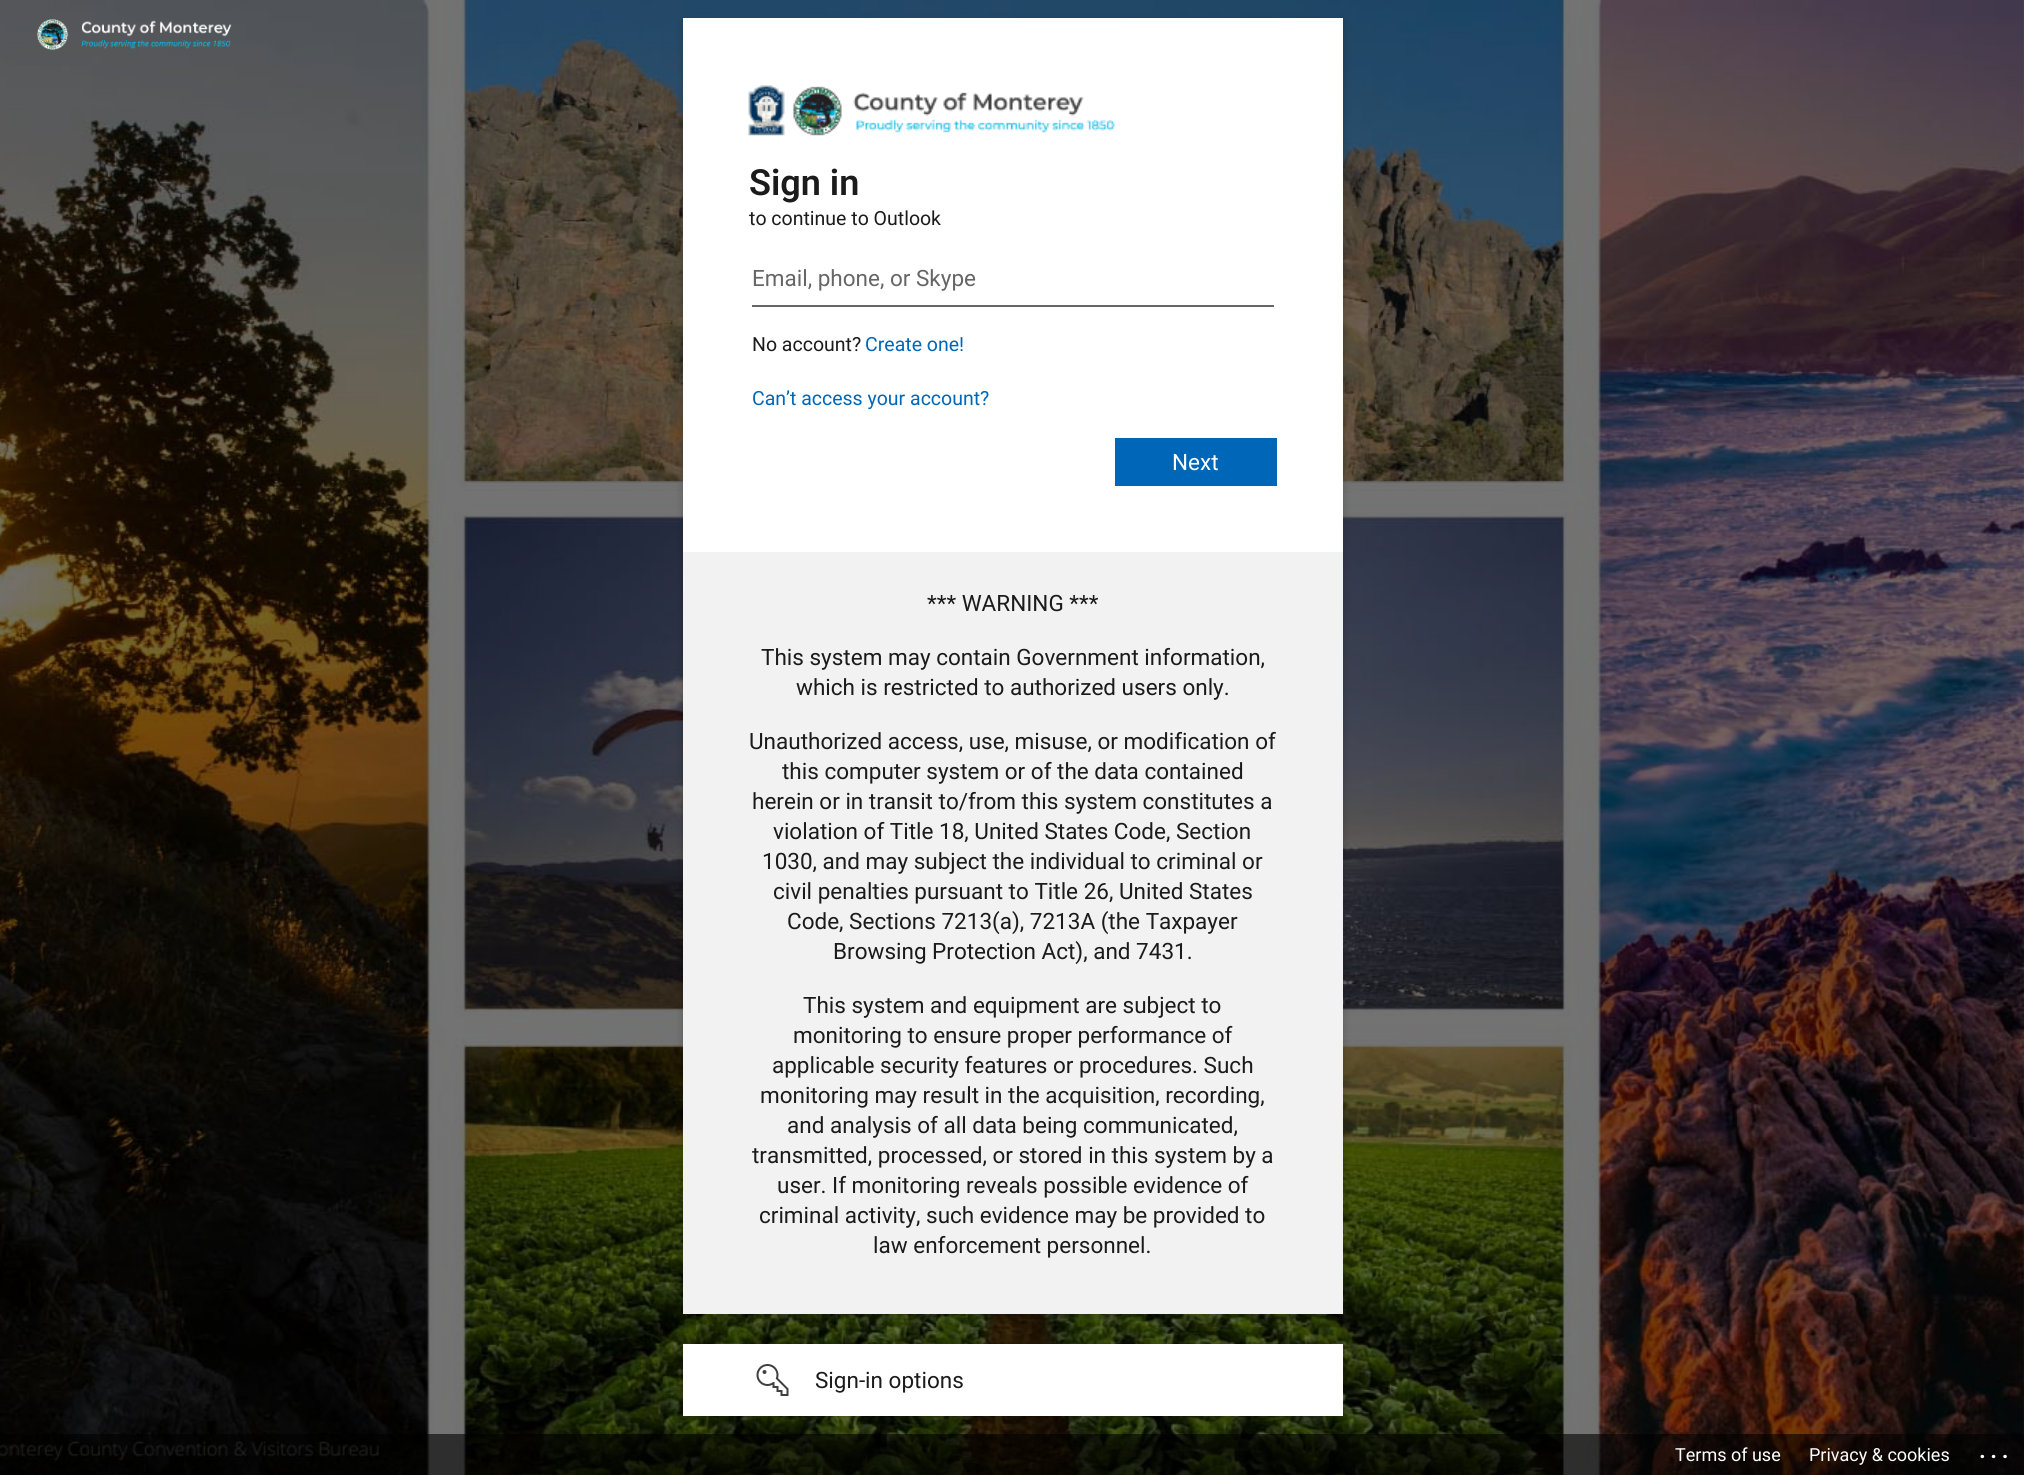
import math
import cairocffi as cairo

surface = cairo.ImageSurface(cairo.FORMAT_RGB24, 2024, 1475)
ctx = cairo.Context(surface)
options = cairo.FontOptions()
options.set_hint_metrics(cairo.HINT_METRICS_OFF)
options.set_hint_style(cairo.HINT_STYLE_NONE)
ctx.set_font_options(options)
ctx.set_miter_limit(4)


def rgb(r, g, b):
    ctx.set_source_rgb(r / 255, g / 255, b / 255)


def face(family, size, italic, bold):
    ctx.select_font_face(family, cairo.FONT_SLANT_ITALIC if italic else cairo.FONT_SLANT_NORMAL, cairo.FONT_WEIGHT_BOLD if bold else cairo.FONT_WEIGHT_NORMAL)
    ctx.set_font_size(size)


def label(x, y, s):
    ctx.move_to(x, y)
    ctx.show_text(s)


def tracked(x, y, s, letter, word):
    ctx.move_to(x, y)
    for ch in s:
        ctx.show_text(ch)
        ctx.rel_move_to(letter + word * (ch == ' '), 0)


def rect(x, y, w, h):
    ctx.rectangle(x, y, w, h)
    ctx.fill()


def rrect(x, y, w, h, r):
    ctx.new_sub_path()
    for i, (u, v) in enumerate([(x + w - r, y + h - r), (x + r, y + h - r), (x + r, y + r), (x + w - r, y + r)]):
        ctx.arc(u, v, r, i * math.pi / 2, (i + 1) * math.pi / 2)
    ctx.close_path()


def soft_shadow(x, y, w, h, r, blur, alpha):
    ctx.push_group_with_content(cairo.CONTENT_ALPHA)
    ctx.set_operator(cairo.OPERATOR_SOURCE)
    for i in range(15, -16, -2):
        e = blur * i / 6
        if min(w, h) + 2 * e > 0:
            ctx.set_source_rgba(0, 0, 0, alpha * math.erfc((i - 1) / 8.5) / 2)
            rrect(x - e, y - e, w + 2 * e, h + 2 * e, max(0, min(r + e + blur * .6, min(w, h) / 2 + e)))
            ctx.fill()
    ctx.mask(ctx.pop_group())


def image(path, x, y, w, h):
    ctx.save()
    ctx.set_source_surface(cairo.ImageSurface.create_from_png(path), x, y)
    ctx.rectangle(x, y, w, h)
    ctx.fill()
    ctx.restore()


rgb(255, 255, 255)
ctx.paint()
image('image0.png', 0, 0, 2024, 1475)
image('image1.png', 37, 19, 195, 31)
rgb(0, 0, 0)
soft_shadow(683, 21, 660, 1296, 0, 4.5, 0.2)
rgb(255, 255, 255)
rect(683, 18, 660, 534)
image('image2.png', 748, 85, 367, 51)
face('Roboto SemiBold', 36, 0, 0)
rgb(27, 27, 27)
label(749, 195, 'Sign in')
face('Roboto', 19.5, 0, 0)
label(749, 225, 'to continue to Outlook')
rgb(102, 102, 102)
rect(752, 305, 522, 2)
face('Roboto', 22.5, 0, 0)
label(752, 286, 'Email, phone, or Skype')
face('Roboto', 19.5, 0, 0)
rgb(27, 27, 27)
label(752, 351, 'No account?')
rgb(0, 103, 184)
label(865, 351, 'Create one!')
label(752, 405, 'Can’t access your account?')
rect(1115, 438, 162, 48)
face('Roboto', 22.5, 0, 0)
rgb(255, 255, 255)
label(1172, 470, 'Next')
rgb(242, 242, 242)
rect(683, 552, 660, 762)
rgb(27, 27, 27)
label(927, 611, '*** WARNING ***')
label(761, 665, 'This system may contain Government information,')
label(796, 695, 'which is restricted to authorized users only.')
label(749, 749, 'Unauthorized access, use, misuse, or modification of')
label(782, 779, 'this computer system or of the data contained')
label(752, 809, 'herein or in transit to/from this system constitutes a')
label(773, 839, 'violation of Title 18, United States Code, Section')
label(762, 869, '1030, and may subject the individual to criminal or')
label(773, 899, 'civil penalties pursuant to Title 26, United States')
label(787, 929, 'Code, Sections 7213(a), 7213A (the Taxpayer')
label(833, 959, 'Browsing Protection Act), and 7431.')
label(803, 1013, 'This system and equipment are subject to')
label(793, 1043, 'monitoring to ensure proper performance of')
label(772, 1073, 'applicable security features or procedures. Such')
label(760, 1103, 'monitoring may result in the acquisition, recording,')
label(787, 1133, 'and analysis of all data being communicated,')
label(752, 1163, 'transmitted, processed, or stored in this system by a')
label(777, 1193, 'user. If monitoring reveals possible evidence of')
label(759, 1223, 'criminal activity, such evidence may be provided to')
label(873, 1253, 'law enforcement personnel.')
rgb(0, 0, 0)
soft_shadow(683, 1347, 660, 72, 0, 4.5, 0.2)
rgb(255, 255, 255)
rect(683, 1344, 660, 72)
image('image3.png', 756, 1364, 33, 32)
rgb(27, 27, 27)
label(815, 1388, 'Sign-in options')
ctx.set_source_rgba(0, 0, 0, 0.6)
rect(0, 1434, 2024, 41)
face('Roboto', 18, 0, 0)
rgb(255, 255, 255)
label(1675, 1461, 'Terms of use')
label(1809, 1461, 'Privacy & cookies')
face('Roboto SemiBold', 24, 0, 0)
tracked(1979, 1458, '...', 4.5, 0)
surface.write_to_png('render.png')
